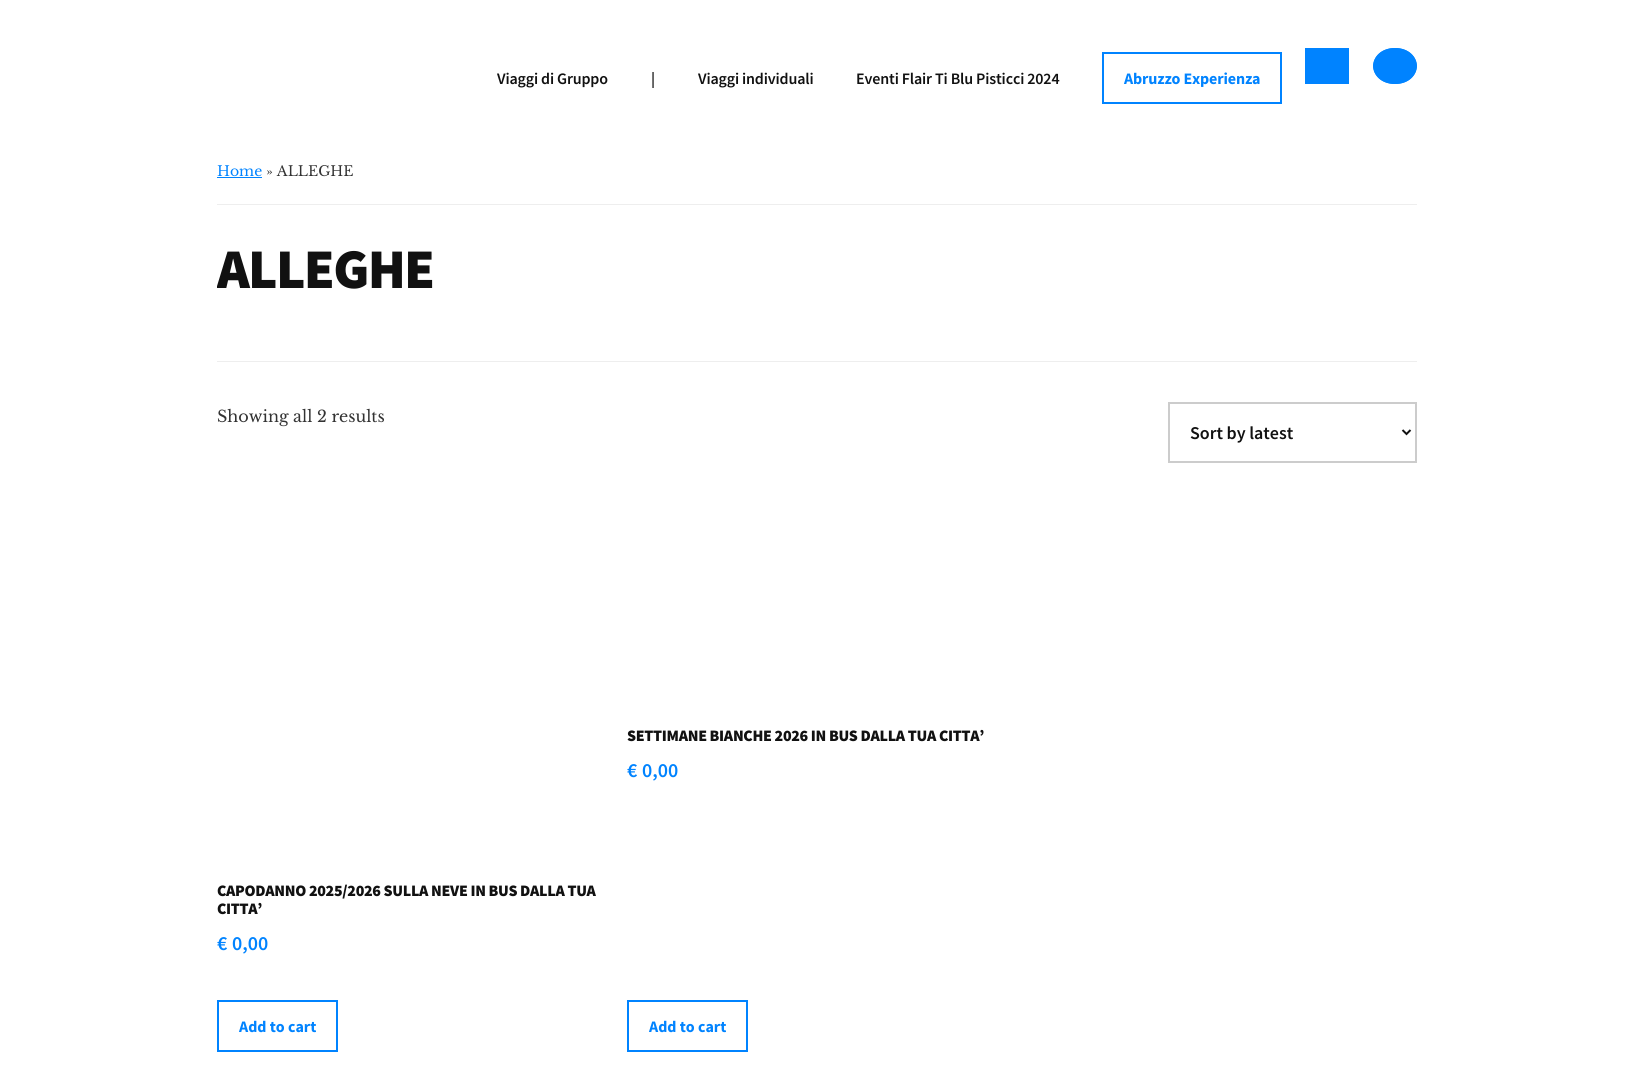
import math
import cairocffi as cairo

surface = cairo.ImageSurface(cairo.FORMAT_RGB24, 1633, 1089)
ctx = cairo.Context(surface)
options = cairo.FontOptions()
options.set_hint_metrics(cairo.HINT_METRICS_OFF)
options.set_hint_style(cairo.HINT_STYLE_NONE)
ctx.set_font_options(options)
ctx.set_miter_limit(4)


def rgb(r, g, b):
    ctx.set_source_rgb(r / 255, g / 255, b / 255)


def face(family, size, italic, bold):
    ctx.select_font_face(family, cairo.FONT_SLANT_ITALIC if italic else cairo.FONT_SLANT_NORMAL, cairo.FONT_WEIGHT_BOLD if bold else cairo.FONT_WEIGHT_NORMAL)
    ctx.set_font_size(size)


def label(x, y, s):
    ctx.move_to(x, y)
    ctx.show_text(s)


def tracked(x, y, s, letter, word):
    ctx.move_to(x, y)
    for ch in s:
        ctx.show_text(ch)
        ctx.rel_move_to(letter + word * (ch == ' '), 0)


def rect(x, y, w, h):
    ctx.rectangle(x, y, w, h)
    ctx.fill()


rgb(255, 255, 255)
ctx.paint()
face('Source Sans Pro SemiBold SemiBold', 16, 0, 0)
rgb(17, 17, 17)
tracked(497, 84, 'Viaggi di Gruppo', -0.15, 0)
tracked(651, 84, '|', -0.15, 0)
tracked(698, 84, 'Viaggi individuali', -0.15, 0)
tracked(856, 84, 'Eventi Flair Ti Blu Pisticci 2024', -0.15, 0)
ctx.rectangle(1103, 53, 178, 50)
rgb(0, 131, 255)
ctx.stroke()
face('Source Sans Pro', 16, 0, 1)
tracked(1124, 84, 'Abruzzo Experienza', -0.15, 0)
rect(1305, 48, 44, 36)
ctx.new_path()
ctx.move_to(1395, 48)
ctx.curve_to(1407, 48, 1417, 56, 1417, 66)
ctx.curve_to(1417, 76, 1407, 84, 1395, 84)
ctx.curve_to(1383, 84, 1373, 76, 1373, 66)
ctx.curve_to(1373, 56, 1383, 48, 1395, 48)
ctx.close_path()
ctx.fill()
ctx.new_path()
ctx.move_to(1395, 49)
ctx.curve_to(1422.5, 49, 1422.5, 83, 1395, 83)
ctx.curve_to(1367.5, 83, 1367.5, 49, 1395, 49)
ctx.close_path()
ctx.stroke()
rgb(238, 238, 238)
rect(217, 204, 1200, 1)
face('Libre Baskerville', 14, 0, 0)
rgb(0, 131, 255)
label(217, 176, 'Home')
rect(217, 177, 45, 1)
rgb(51, 51, 51)
label(266, 176, '» ALLEGHE')
rgb(238, 238, 238)
rect(217, 361, 1200, 1)
ctx.save()
ctx.rectangle(217, 240, 1200, 121)
ctx.clip()
face('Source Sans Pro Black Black', 56, 0, 0)
rgb(17, 17, 17)
tracked(217, 288, 'ALLEGHE', -1.75, 0)
ctx.restore()
face('Libre Baskerville', 16, 0, 0)
rgb(51, 51, 51)
label(217, 422, 'Showing all 2 results')
ctx.rectangle(1169, 403, 247, 59)
rgb(204, 204, 204)
ctx.stroke()
ctx.new_path()
ctx.move_to(1402.5, 430)
ctx.line_to(1406.5, 434)
ctx.line_to(1410.5, 430)
rgb(17, 17, 17)
ctx.stroke()
face('Source Sans Pro SemiBold SemiBold', 18, 0, 0)
label(1190, 439, 'Sort by latest')
face('Source Sans Pro Black Black', 16, 0, 0)
tracked(217, 896, 'CAPODANNO 2025/2026 SULLA NEVE IN BUS DALLA TUA', -0.3, 0)
tracked(217, 914, 'CITTA’', -0.3, 0)
face('Source Sans Pro SemiBold SemiBold', 20, 0, 0)
rgb(0, 131, 255)
label(217, 950, '€')
label(232, 950, '0,00')
ctx.rectangle(218, 1001, 119, 50)
ctx.stroke()
face('Source Sans Pro', 16, 0, 1)
label(239, 1032, 'Add to cart')
face('Source Sans Pro Black Black', 16, 0, 0)
rgb(17, 17, 17)
tracked(627, 741, 'SETTIMANE BIANCHE 2026 IN BUS DALLA TUA CITTA’', -0.3, 0)
face('Source Sans Pro SemiBold SemiBold', 20, 0, 0)
rgb(0, 131, 255)
label(627, 777, '€')
label(642, 777, '0,00')
ctx.rectangle(628, 1001, 119, 50)
ctx.stroke()
face('Source Sans Pro', 16, 0, 1)
label(649, 1032, 'Add to cart')
surface.write_to_png('render.png')
